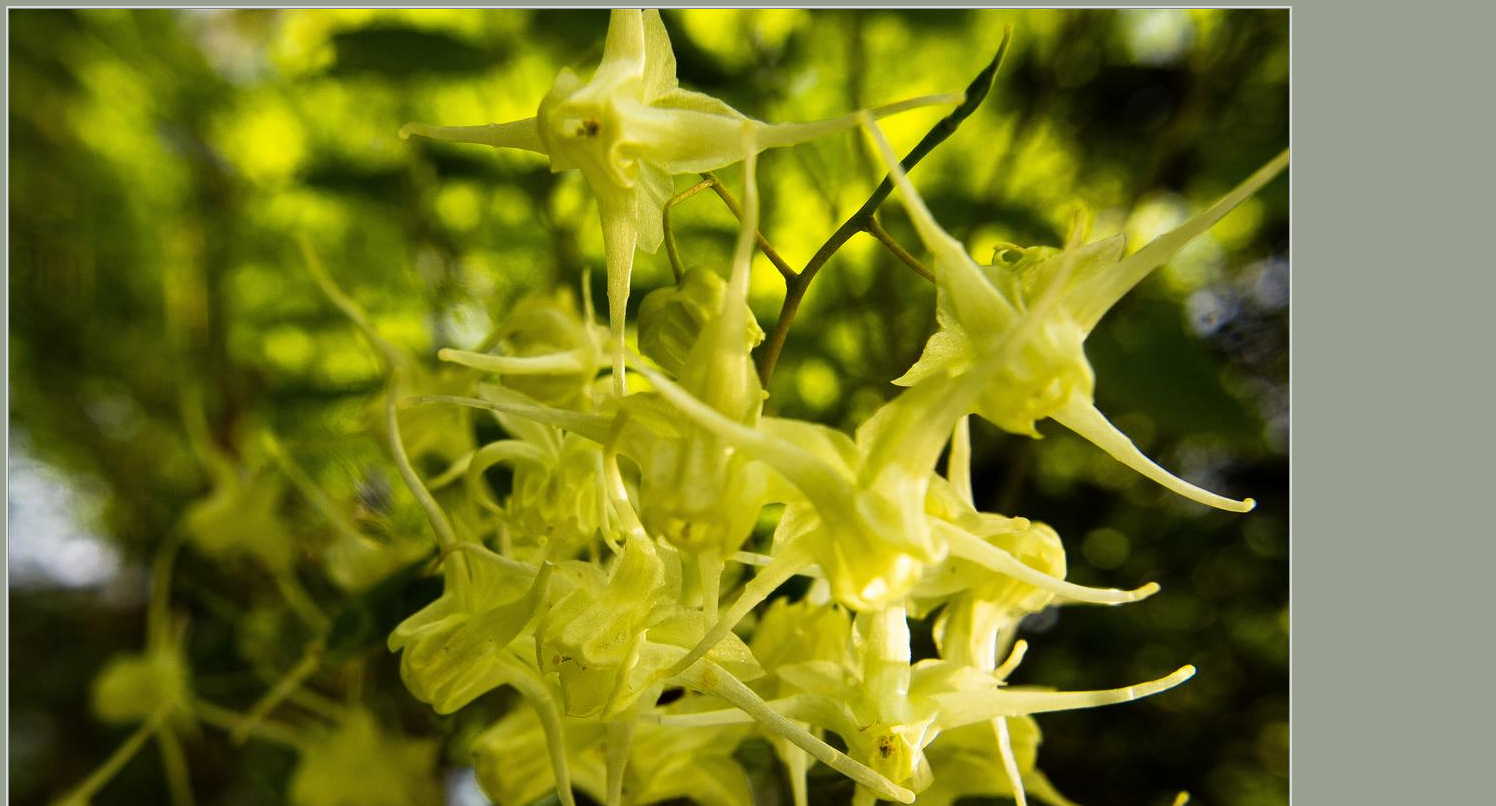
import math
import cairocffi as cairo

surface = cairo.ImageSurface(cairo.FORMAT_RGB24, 1496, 806)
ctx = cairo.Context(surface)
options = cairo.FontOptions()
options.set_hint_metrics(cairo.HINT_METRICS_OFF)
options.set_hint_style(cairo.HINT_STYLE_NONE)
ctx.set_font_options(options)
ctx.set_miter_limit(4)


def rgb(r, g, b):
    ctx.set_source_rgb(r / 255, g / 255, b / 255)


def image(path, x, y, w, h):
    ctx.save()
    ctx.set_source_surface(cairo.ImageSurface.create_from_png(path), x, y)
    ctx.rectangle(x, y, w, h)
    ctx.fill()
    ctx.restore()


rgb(152, 160, 144)
ctx.paint()
ctx.rectangle(7, 7, 1284, 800)
rgb(220, 220, 220)
ctx.stroke()
ctx.rectangle(8.5, 8.5, 1281, 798)
rgb(128, 128, 128)
ctx.set_line_width(1)
ctx.stroke()
image('image0.png', 9, 9, 1280, 797)
surface.write_to_png('render.png')
